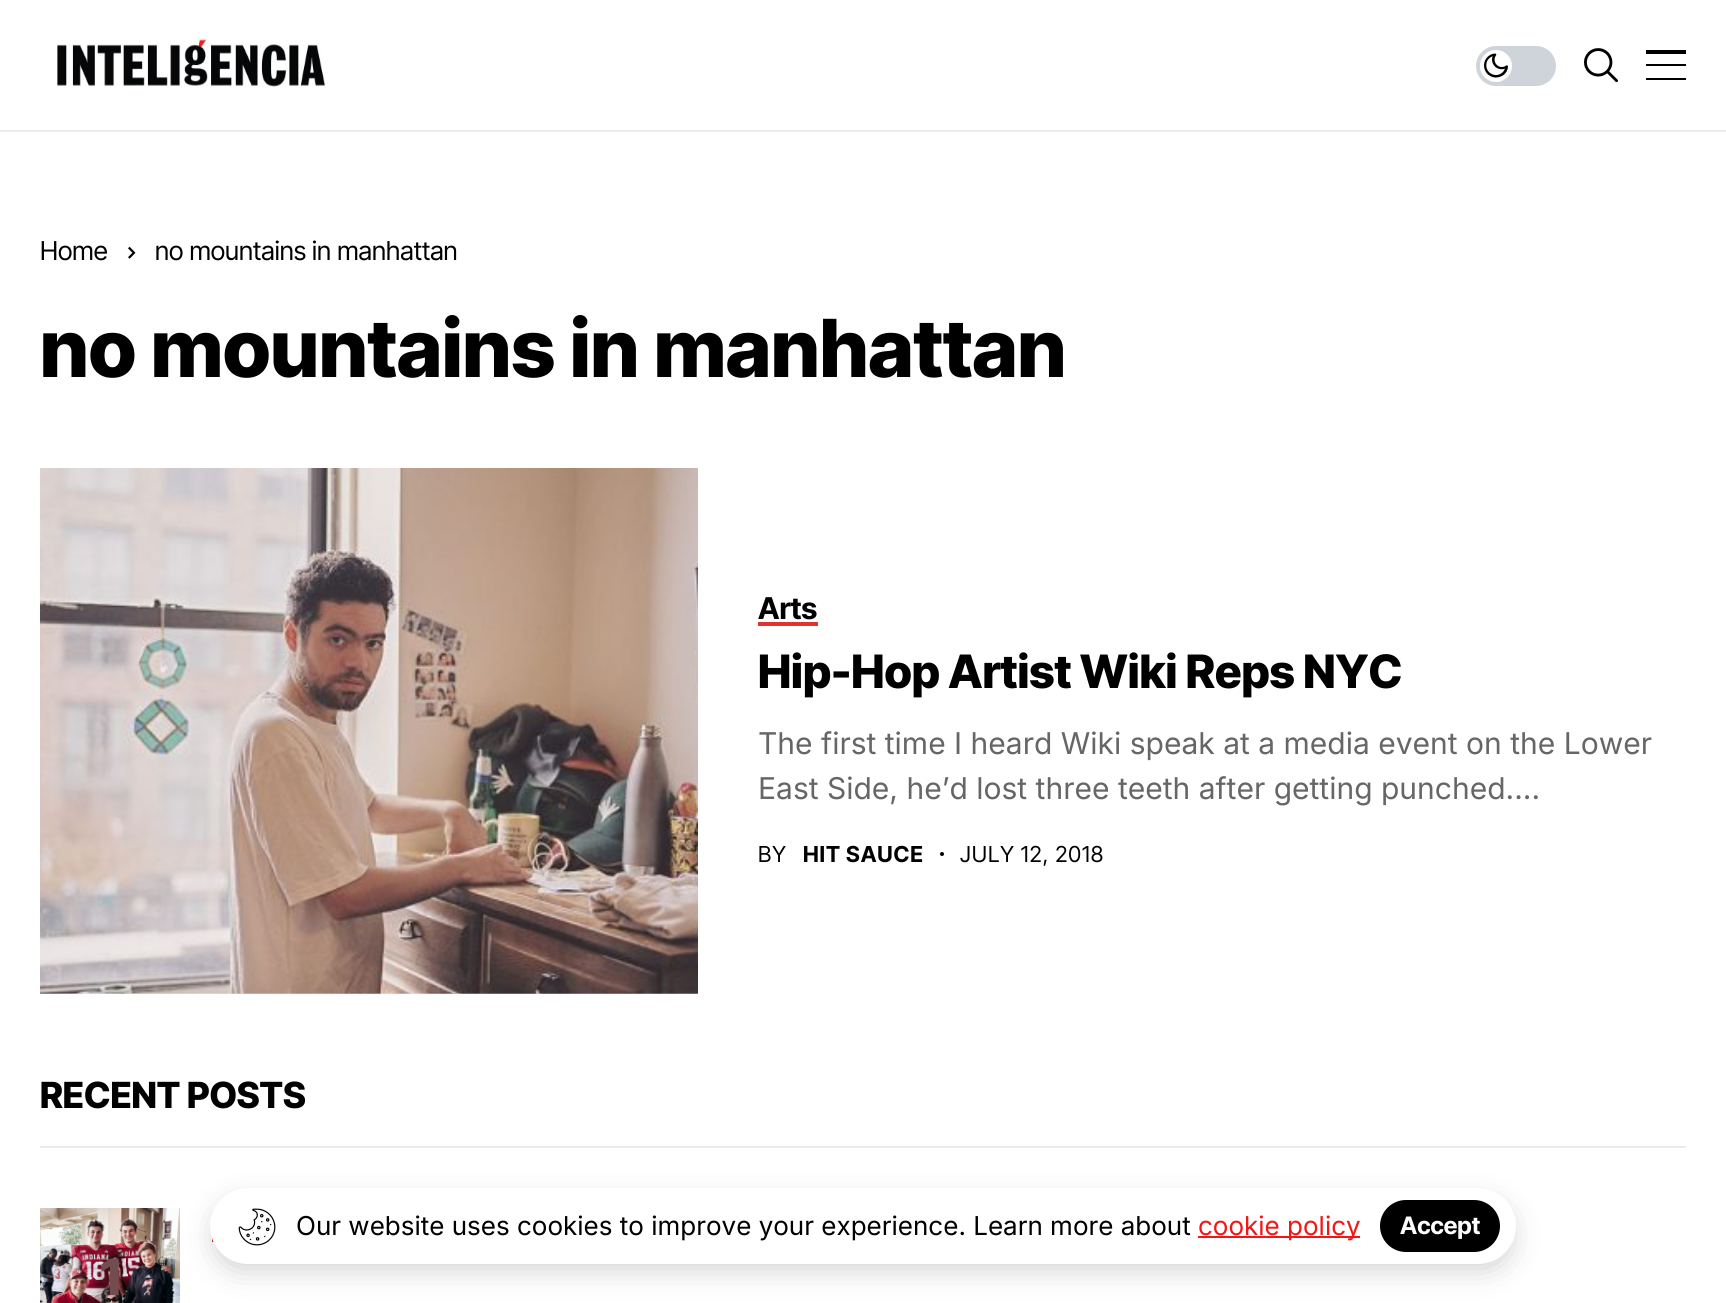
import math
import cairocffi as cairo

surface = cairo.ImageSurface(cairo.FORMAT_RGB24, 1726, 1303)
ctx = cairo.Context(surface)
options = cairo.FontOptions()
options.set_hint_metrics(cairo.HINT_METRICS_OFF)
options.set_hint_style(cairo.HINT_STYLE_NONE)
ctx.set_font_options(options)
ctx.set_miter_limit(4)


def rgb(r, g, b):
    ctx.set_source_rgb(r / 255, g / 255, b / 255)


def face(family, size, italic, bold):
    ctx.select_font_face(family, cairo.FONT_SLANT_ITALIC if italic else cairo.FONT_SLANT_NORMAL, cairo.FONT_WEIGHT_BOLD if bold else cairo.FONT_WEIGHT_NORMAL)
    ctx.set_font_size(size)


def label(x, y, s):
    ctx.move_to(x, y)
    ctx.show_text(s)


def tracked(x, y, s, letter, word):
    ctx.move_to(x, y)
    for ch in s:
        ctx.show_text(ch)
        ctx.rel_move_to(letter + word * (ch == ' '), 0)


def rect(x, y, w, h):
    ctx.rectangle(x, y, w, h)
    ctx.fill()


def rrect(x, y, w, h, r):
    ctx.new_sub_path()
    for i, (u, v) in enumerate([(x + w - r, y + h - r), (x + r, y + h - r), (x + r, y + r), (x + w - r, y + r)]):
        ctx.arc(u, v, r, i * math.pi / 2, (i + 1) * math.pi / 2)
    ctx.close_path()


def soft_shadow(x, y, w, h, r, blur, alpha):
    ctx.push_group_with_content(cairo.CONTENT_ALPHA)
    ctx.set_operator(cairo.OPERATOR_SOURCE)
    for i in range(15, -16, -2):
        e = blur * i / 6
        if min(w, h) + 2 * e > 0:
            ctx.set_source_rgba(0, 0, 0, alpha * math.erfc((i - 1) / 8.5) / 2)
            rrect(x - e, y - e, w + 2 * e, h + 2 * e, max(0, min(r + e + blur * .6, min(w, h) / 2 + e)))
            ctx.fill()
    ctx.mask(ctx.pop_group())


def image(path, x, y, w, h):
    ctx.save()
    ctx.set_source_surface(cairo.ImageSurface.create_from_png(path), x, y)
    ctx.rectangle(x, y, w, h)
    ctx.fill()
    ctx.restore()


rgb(255, 255, 255)
ctx.paint()
rgb(238, 237, 235)
rect(0, 130, 1726, 2)
image('image0.png', 57, 38, 268, 49)
rgb(206, 212, 218)
rrect(1476, 46, 80, 40, 20)
ctx.fill()
rgb(255, 255, 255)
ctx.arc(1496, 66, 16, 0, 2 * math.pi)
ctx.fill()
image('image1.png', 1484, 53, 24, 25)
image('image2.png', 1584, 48, 34, 35)
rgb(0, 0, 0)
rect(1646, 50, 40, 4)
rect(1646, 64, 40, 2)
rect(1646, 78, 40, 2)
face('Inter Tight', 26, 0, 0)
label(40, 260, 'Home')
image('image3.png', 128, 246, 8, 13)
label(155, 260, 'no mountains in manhattan')
face('Inter Tight ExtraBold', 80, 0, 0)
label(40, 377, 'no mountains in manhattan')
image('image4.png', 40, 468, 658, 526)
face('Inter Tight', 30, 0, 1)
label(758, 619, 'Arts')
rgb(221, 51, 51)
rect(758, 622, 60, 4)
face('Inter Tight ExtraBold', 46, 0, 0)
rgb(0, 0, 0)
label(758, 688, 'Hip-Hop Artist Wiki Reps NYC')
face('Inter', 30, 0, 0)
rgb(102, 102, 102)
label(758, 754, 'The first time I heard Wiki speak at a media event on the Lower')
label(758, 799, 'East Side, he’d lost three teeth after getting punched....')
face('Inter Tight', 22, 0, 0)
rgb(0, 0, 0)
tracked(758, 862, 'BY', 0.9, 0)
face('Inter Tight', 22, 0, 1)
tracked(803, 862, 'HIT SAUCE', 0.9, 0)
ctx.new_path()
ctx.arc(942, 854, 2, 0, 2 * math.pi)
ctx.fill()
face('Inter Tight', 22, 0, 0)
tracked(960, 862, 'JULY 12, 2018', 0.9, 0)
rgb(233, 236, 239)
rect(40, 1146, 1646, 2)
face('Inter Tight ExtraBold', 36, 0, 0)
rgb(0, 0, 0)
label(40, 1108, 'RECENT POSTS')
rgb(242, 23, 23)
rect(212, 1238, 2, 4)
image('image5.png', 40, 1208, 140, 95)
face('Inter Tight ExtraBold', 50, 0, 0)
rgb(114, 76, 78)
label(100, 1295, '1')
rgb(0, 0, 0)
soft_shadow(216, 1204, 1294, 64, 32, 15, 0.2)
rgb(255, 255, 255)
rrect(210, 1188, 1306, 76, 38)
ctx.fill()
image('image6.png', 238, 1208, 38, 38)
face('Inter', 26, 0, 0)
rgb(0, 0, 0)
label(296, 1235, 'Our website uses cookies to improve your experience. Learn more about')
rgb(242, 23, 23)
rect(1198, 1236, 162, 2)
label(1198, 1235, 'cookie policy')
rgb(0, 0, 0)
rrect(1380, 1200, 120, 52, 26)
ctx.fill()
face('Inter Tight', 24, 0, 1)
rgb(255, 255, 255)
label(1400, 1234, 'Accept')
surface.write_to_png('render.png')
